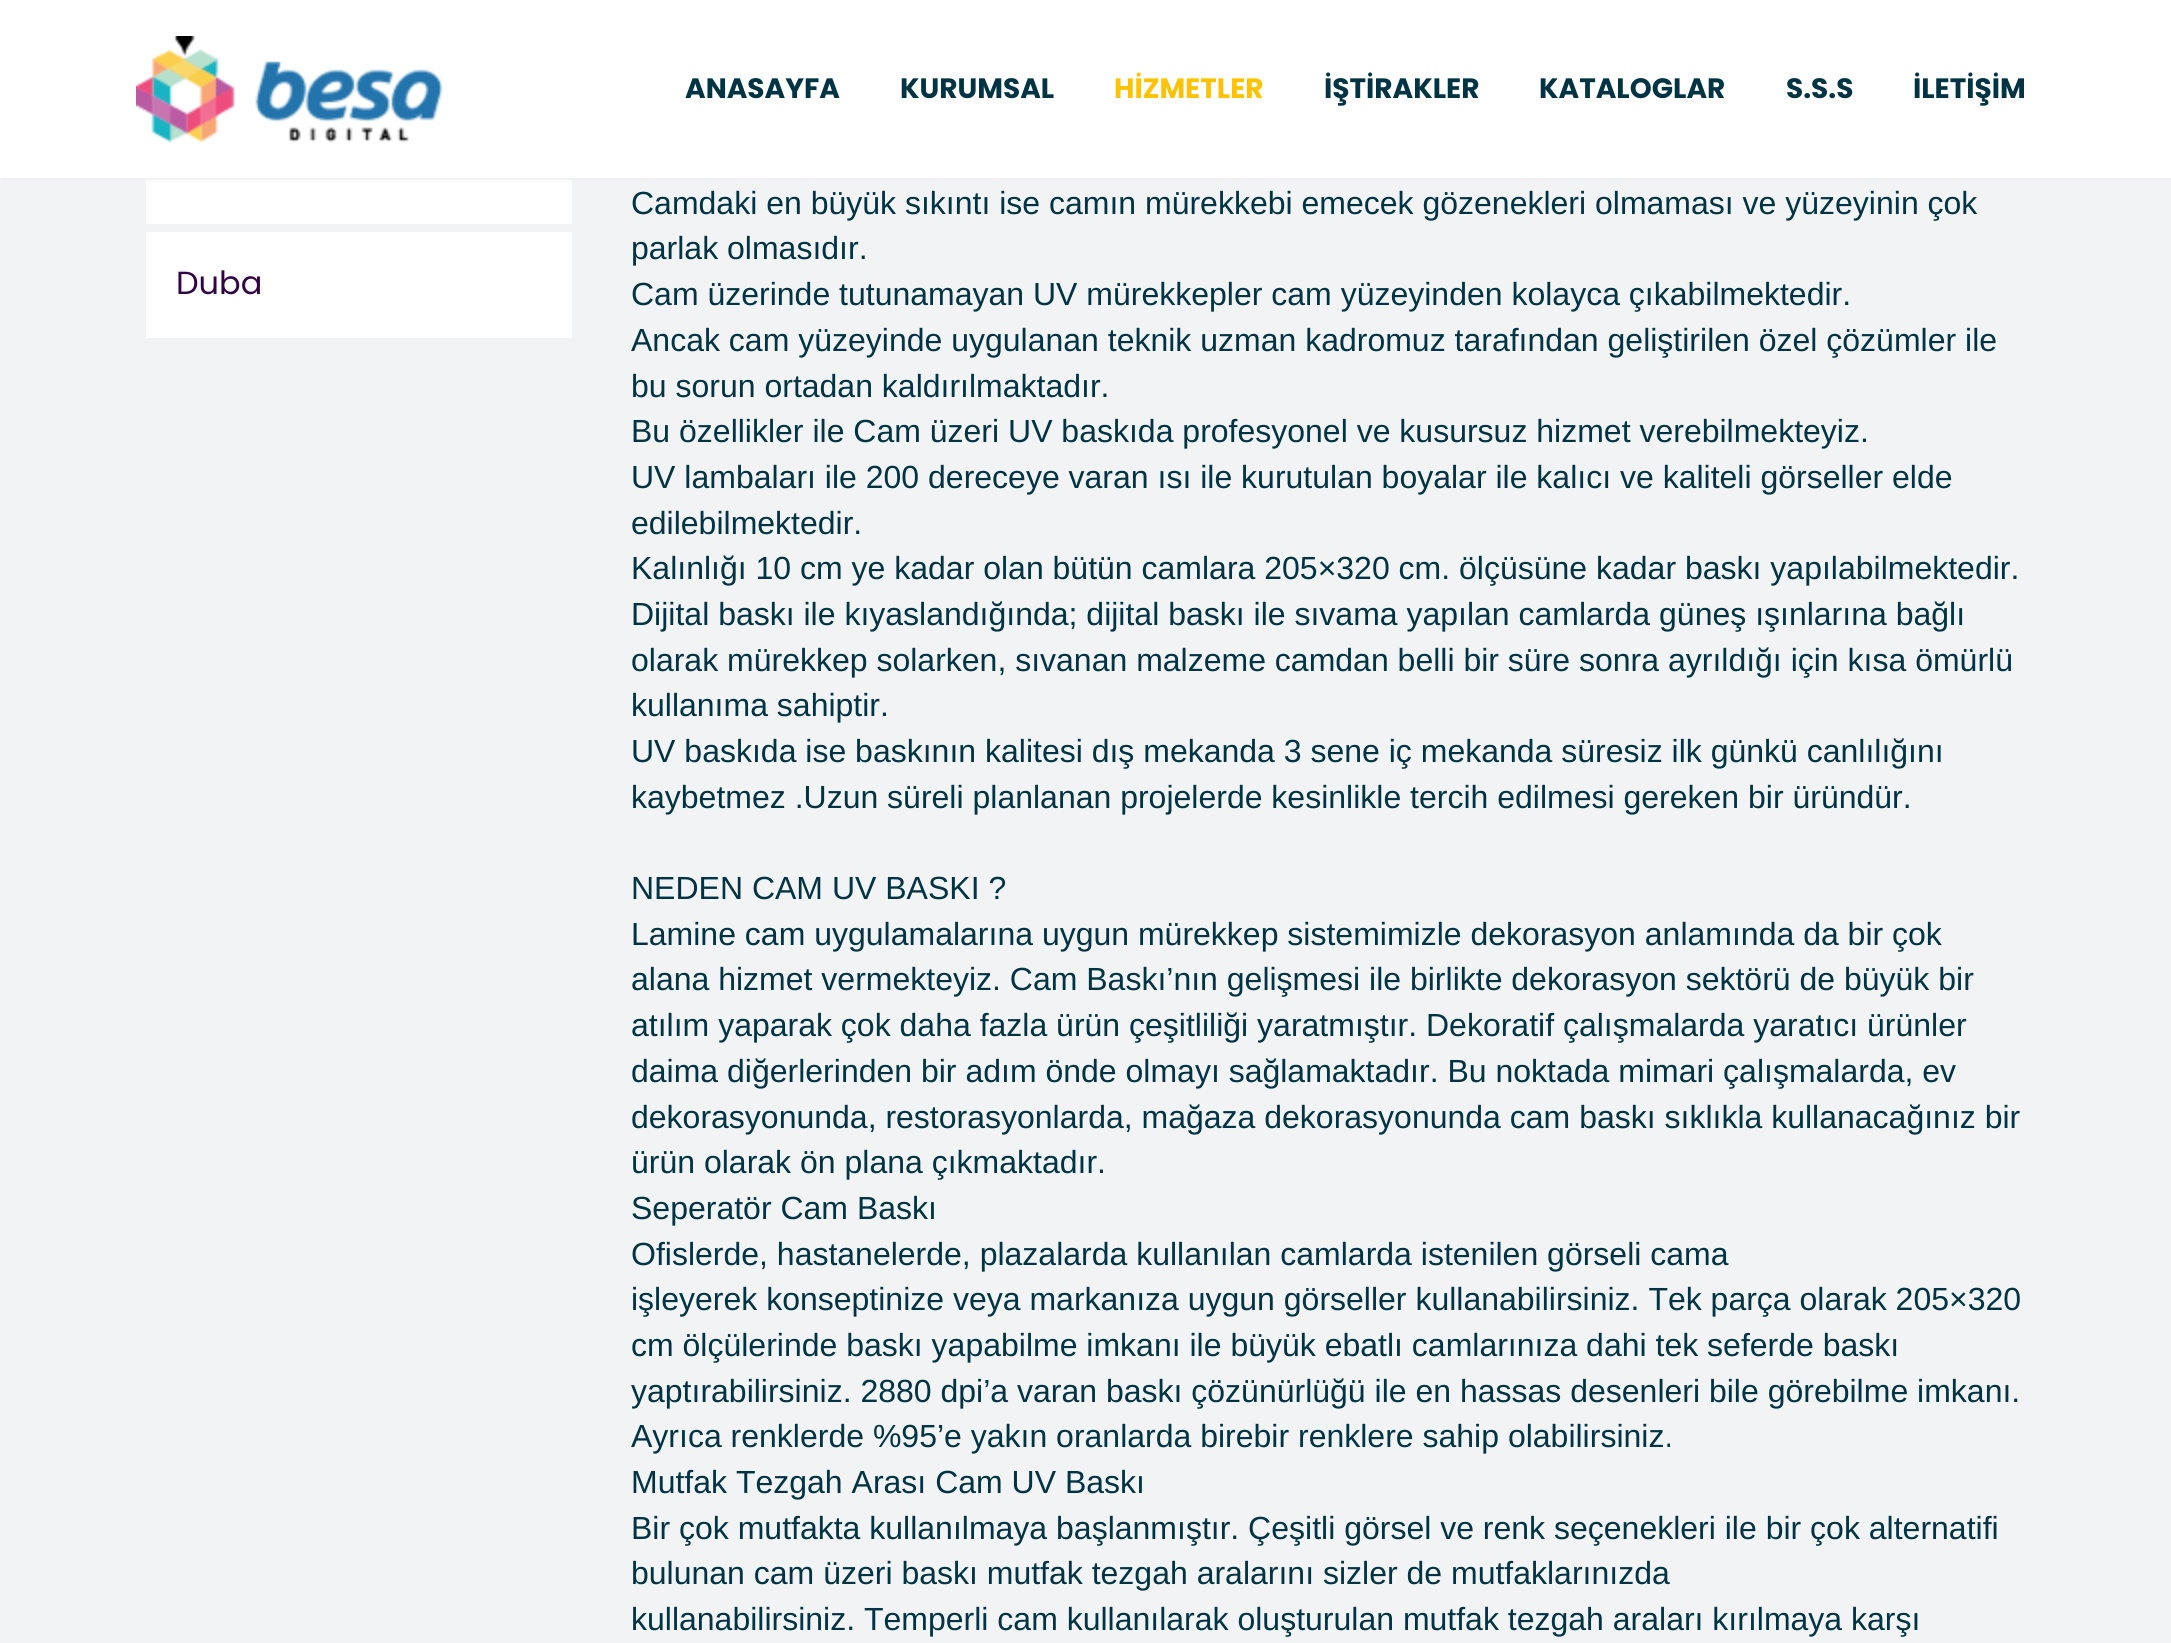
import math
import cairocffi as cairo

surface = cairo.ImageSurface(cairo.FORMAT_RGB24, 2171, 1643)
ctx = cairo.Context(surface)
options = cairo.FontOptions()
options.set_hint_metrics(cairo.HINT_METRICS_OFF)
options.set_hint_style(cairo.HINT_STYLE_NONE)
ctx.set_font_options(options)
ctx.set_miter_limit(4)


def rgb(r, g, b):
    ctx.set_source_rgb(r / 255, g / 255, b / 255)


def face(family, size, italic, bold):
    ctx.select_font_face(family, cairo.FONT_SLANT_ITALIC if italic else cairo.FONT_SLANT_NORMAL, cairo.FONT_WEIGHT_BOLD if bold else cairo.FONT_WEIGHT_NORMAL)
    ctx.set_font_size(size)


def label(x, y, s):
    ctx.move_to(x, y)
    ctx.show_text(s)


def rect(x, y, w, h):
    ctx.rectangle(x, y, w, h)
    ctx.fill()


def rrect(x, y, w, h, r):
    ctx.new_sub_path()
    for i, (u, v) in enumerate([(x + w - r, y + h - r), (x + r, y + h - r), (x + r, y + r), (x + w - r, y + r)]):
        ctx.arc(u, v, r, i * math.pi / 2, (i + 1) * math.pi / 2)
    ctx.close_path()


def soft_shadow(x, y, w, h, r, blur, alpha):
    ctx.push_group_with_content(cairo.CONTENT_ALPHA)
    ctx.set_operator(cairo.OPERATOR_SOURCE)
    for i in range(15, -16, -2):
        e = blur * i / 6
        if min(w, h) + 2 * e > 0:
            ctx.set_source_rgba(0, 0, 0, alpha * math.erfc((i - 1) / 8.5) / 2)
            rrect(x - e, y - e, w + 2 * e, h + 2 * e, max(0, min(r + e + blur * .6, min(w, h) / 2 + e)))
            ctx.fill()
    ctx.mask(ctx.pop_group())


def image(path, x, y, w, h):
    ctx.save()
    ctx.set_source_surface(cairo.ImageSurface.create_from_png(path), x, y)
    ctx.rectangle(x, y, w, h)
    ctx.fill()
    ctx.restore()


rgb(242, 243, 244)
ctx.paint()
rgb(255, 255, 255)
rect(146, 178, 426, 46)
rgb(239, 239, 239)
soft_shadow(2, 2, 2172, 178, 0, 1, 1)
rgb(255, 255, 255)
rect(0, 0, 2171, 178)
image('image0.png', 136, 36, 307, 107)
face('Poppins', 28, 0, 1)
rgb(0, 52, 69)
label(685, 98, 'ANASAYFA')
label(900, 98, 'KURUMSAL')
rgb(254, 194, 0)
label(1114, 98, 'HİZMETLER')
rgb(0, 52, 69)
label(1324, 98, 'İŞTİRAKLER')
label(1539, 98, 'KATALOGLAR')
label(1786, 98, 'S.S.S')
label(1913, 98, 'İLETİŞİM')
rgb(255, 255, 255)
rect(146, 232, 426, 106)
face('Poppins', 32, 0, 0)
rgb(51, 4, 69)
label(176, 294, 'Duba')
face('Liberation Sans', 32, 0, 0)
rgb(0, 52, 69)
label(631, 214, 'Camdaki en büyük sıkıntı ise camın mürekkebi emecek gözenekleri olmaması ve yüzeyinin çok')
label(631, 259, 'parlak olmasıdır.')
label(631, 305, 'Cam üzerinde tutunamayan UV mürekkepler cam yüzeyinden kolayca çıkabilmektedir.')
label(631, 351, 'Ancak cam yüzeyinde uygulanan teknik uzman kadromuz tarafından geliştirilen özel çözümler ile')
label(631, 397, 'bu sorun ortadan kaldırılmaktadır.')
label(631, 442, 'Bu özellikler ile Cam üzeri UV baskıda profesyonel ve kusursuz hizmet verebilmekteyiz.')
label(631, 488, 'UV lambaları ile 200 dereceye varan ısı ile kurutulan boyalar ile kalıcı ve kaliteli görseller elde')
label(631, 534, 'edilebilmektedir.')
label(631, 579, 'Kalınlığı 10 cm ye kadar olan bütün camlara 205×320 cm. ölçüsüne kadar baskı yapılabilmektedir.')
label(631, 625, 'Dijital baskı ile kıyaslandığında; dijital baskı ile sıvama yapılan camlarda güneş ışınlarına bağlı')
label(631, 671, 'olarak mürekkep solarken, sıvanan malzeme camdan belli bir süre sonra ayrıldığı için kısa ömürlü')
label(631, 716, 'kullanıma sahiptir.')
label(631, 762, 'UV baskıda ise baskının kalitesi dış mekanda 3 sene iç mekanda süresiz ilk günkü canlılığını')
label(631, 808, 'kaybetmez .Uzun süreli planlanan projelerde kesinlikle tercih edilmesi gereken bir üründür.')
label(631, 899, 'NEDEN CAM UV BASKI ?')
label(631, 945, 'Lamine cam uygulamalarına uygun mürekkep sistemimizle dekorasyon anlamında da bir çok')
label(631, 990, 'alana hizmet vermekteyiz. Cam Baskı’nın gelişmesi ile birlikte dekorasyon sektörü de büyük bir')
label(631, 1036, 'atılım yaparak çok daha fazla ürün çeşitliliği yaratmıştır. Dekoratif çalışmalarda yaratıcı ürünler')
label(631, 1082, 'daima diğerlerinden bir adım önde olmayı sağlamaktadır. Bu noktada mimari çalışmalarda, ev')
label(631, 1128, 'dekorasyonunda, restorasyonlarda, mağaza dekorasyonunda cam baskı sıklıkla kullanacağınız bir')
label(631, 1173, 'ürün olarak ön plana çıkmaktadır.')
label(631, 1219, 'Seperatör Cam Baskı')
label(631, 1265, 'Ofislerde, hastanelerde, plazalarda kullanılan camlarda istenilen görseli cama')
label(631, 1310, 'işleyerek konseptinize veya markanıza uygun görseller kullanabilirsiniz. Tek parça olarak 205×320')
label(631, 1356, 'cm ölçülerinde baskı yapabilme imkanı ile büyük ebatlı camlarınıza dahi tek seferde baskı')
label(631, 1402, 'yaptırabilirsiniz. 2880 dpi’a varan baskı çözünürlüğü ile en hassas desenleri bile görebilme imkanı.')
label(631, 1447, 'Ayrıca renklerde %95’e yakın oranlarda birebir renklere sahip olabilirsiniz.')
label(631, 1493, 'Mutfak Tezgah Arası Cam UV Baskı')
label(631, 1539, 'Bir çok mutfakta kullanılmaya başlanmıştır. Çeşitli görsel ve renk seçenekleri ile bir çok alternatifi')
label(631, 1584, 'bulunan cam üzeri baskı mutfak tezgah aralarını sizler de mutfaklarınızda')
label(631, 1630, 'kullanabilirsiniz. Temperli cam kullanılarak oluşturulan mutfak tezgah araları kırılmaya karşı')
surface.write_to_png('render.png')
